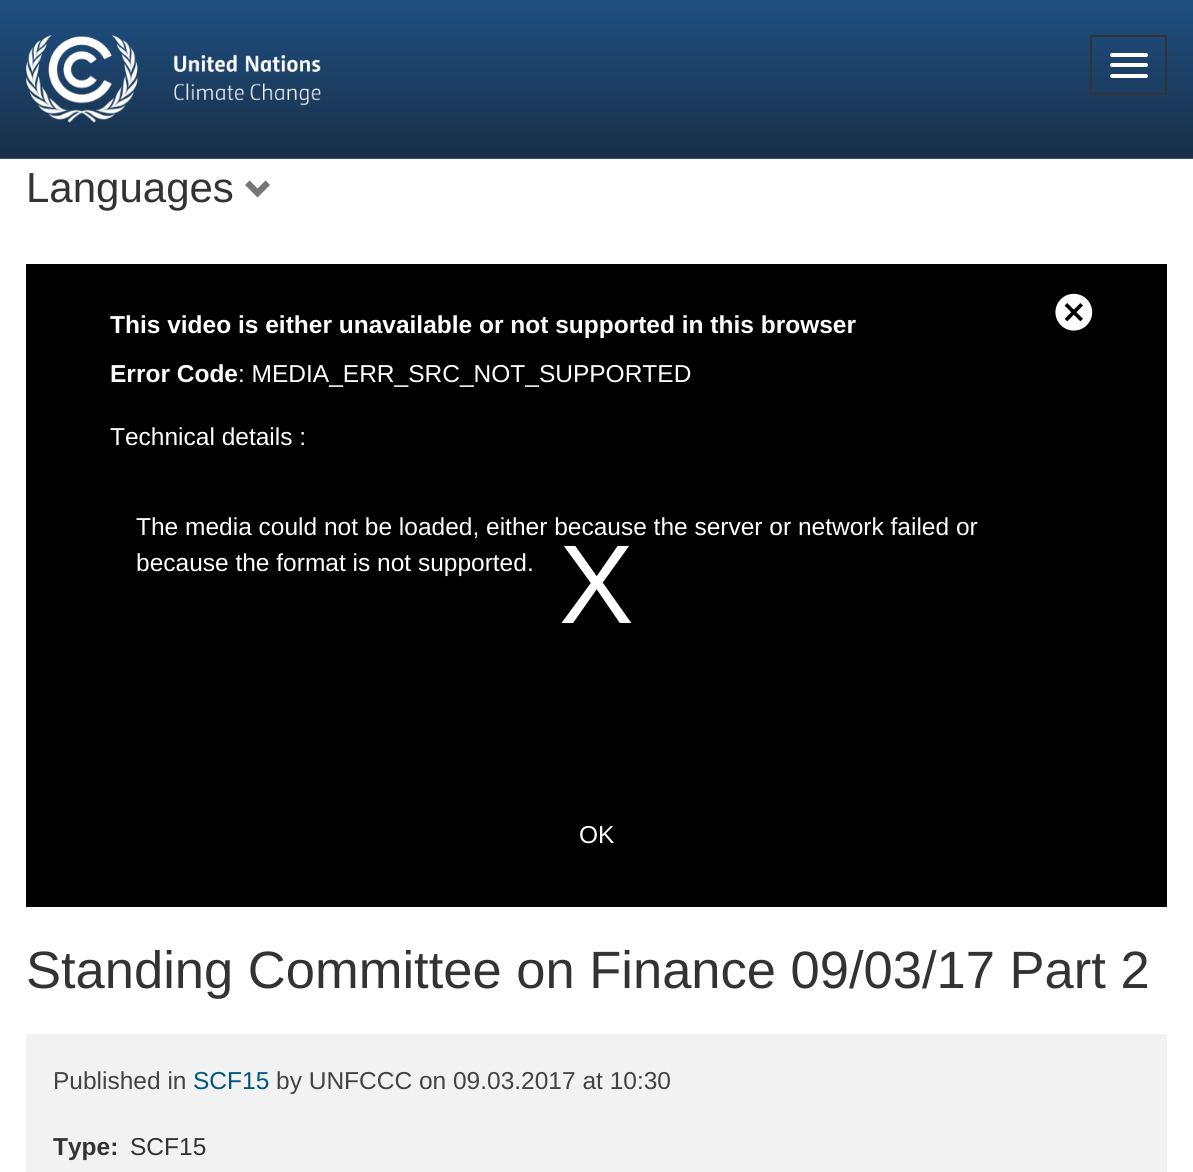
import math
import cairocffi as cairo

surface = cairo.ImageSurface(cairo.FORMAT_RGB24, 1193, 1172)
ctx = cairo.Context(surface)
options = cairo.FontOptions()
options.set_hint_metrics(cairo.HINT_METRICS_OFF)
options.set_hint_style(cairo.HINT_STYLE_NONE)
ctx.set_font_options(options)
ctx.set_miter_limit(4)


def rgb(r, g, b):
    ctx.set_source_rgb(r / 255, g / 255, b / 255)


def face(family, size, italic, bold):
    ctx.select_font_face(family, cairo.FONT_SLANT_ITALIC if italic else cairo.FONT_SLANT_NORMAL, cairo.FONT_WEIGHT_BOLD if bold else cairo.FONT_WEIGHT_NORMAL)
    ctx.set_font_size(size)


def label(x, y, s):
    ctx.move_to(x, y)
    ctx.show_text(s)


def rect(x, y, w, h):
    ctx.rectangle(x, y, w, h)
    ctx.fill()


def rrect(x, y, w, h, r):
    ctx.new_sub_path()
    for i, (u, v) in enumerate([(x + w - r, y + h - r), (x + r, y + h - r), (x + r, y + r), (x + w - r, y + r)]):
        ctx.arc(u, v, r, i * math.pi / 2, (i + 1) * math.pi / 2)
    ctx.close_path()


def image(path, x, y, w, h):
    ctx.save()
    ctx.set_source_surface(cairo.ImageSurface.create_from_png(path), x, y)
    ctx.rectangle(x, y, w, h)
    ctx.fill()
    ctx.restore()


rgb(255, 255, 255)
ctx.paint()
rgb(248, 250, 251)
rect(0, 159, 1193, 1)
gradient = cairo.LinearGradient(597, 0, 597, 159)
gradient.add_color_stop_rgba(0, 0.122, 0.31, 0.51, 1)
gradient.add_color_stop_rgba(1, 0.094, 0.184, 0.278, 1)
ctx.set_source(gradient)
rect(0, 0, 1193, 158)
gradient = cairo.LinearGradient(597, 0, 597, 159)
gradient.add_color_stop_rgba(0, 0.271, 0.427, 0.592, 1)
gradient.add_color_stop_rgba(1, 0.251, 0.325, 0.408, 1)
ctx.set_source(gradient)
rect(0, 158, 1193, 1)
image('image0.png', 26, 35, 295, 88)
ctx.rectangle(1091, 36, 75, 58)
rgb(51, 51, 51)
ctx.stroke()
rgb(255, 255, 255)
rrect(1110, 53, 38, 4, 2)
ctx.fill()
rrect(1110, 63, 38, 4, 2)
ctx.fill()
rrect(1110, 74, 38, 4, 2)
ctx.fill()
face('Liberation Sans', 42, 0, 0)
rgb(51, 51, 51)
label(26, 202, 'Languages')
rgb(119, 119, 119)
ctx.new_path()
ctx.move_to(270, 185)
ctx.line_to(257.5, 197.5)
ctx.line_to(245, 185)
ctx.line_to(249.5, 180.5)
ctx.line_to(257.5, 188.5)
ctx.line_to(265.5, 180.5)
ctx.close_path()
ctx.fill()
rgb(0, 0, 0)
rect(26, 264, 1141, 643)
ctx.save()
ctx.rectangle(110, 277, 973, 509)
ctx.clip()
face('Liberation Sans', 24.5, 0, 1)
rgb(255, 255, 255)
label(110, 333, 'This video is either unavailable or not supported in this browser')
ctx.restore()
face('Liberation Sans', 24.5, 0, 1)
rgb(255, 255, 255)
label(110, 382, 'Error Code')
face('Liberation Sans', 24.5, 0, 0)
label(238, 382, ': MEDIA_ERR_SRC_NOT_SUPPORTED')
label(110, 445, 'Technical details :')
label(136, 535, 'The media could not be loaded, either because the server or network failed or')
label(136, 571, 'because the format is not supported.')
image('image1.png', 1055, 293, 38, 38)
label(579, 843, 'OK')
face('Liberation Sans', 112, 0, 0)
label(559, 623, 'X')
face('Liberation Sans', 52.5, 0, 0)
rgb(51, 51, 51)
label(26, 988, 'Standing Committee on Finance 09/03/17 Part 2')
rgb(242, 242, 242)
rect(26, 1034, 1141, 138)
face('Liberation Sans', 24.5, 0, 0)
rgb(67, 67, 67)
label(53, 1089, 'Published in')
rgb(0, 88, 126)
label(193, 1089, 'SCF15')
rgb(67, 67, 67)
label(276, 1089, 'by UNFCCC on 09.03.2017 at 10:30')
face('Liberation Sans', 24.5, 0, 1)
rgb(51, 51, 51)
label(53, 1155, 'Type:')
face('Liberation Sans', 24.5, 0, 0)
label(130, 1155, 'SCF15')
surface.write_to_png('render.png')
